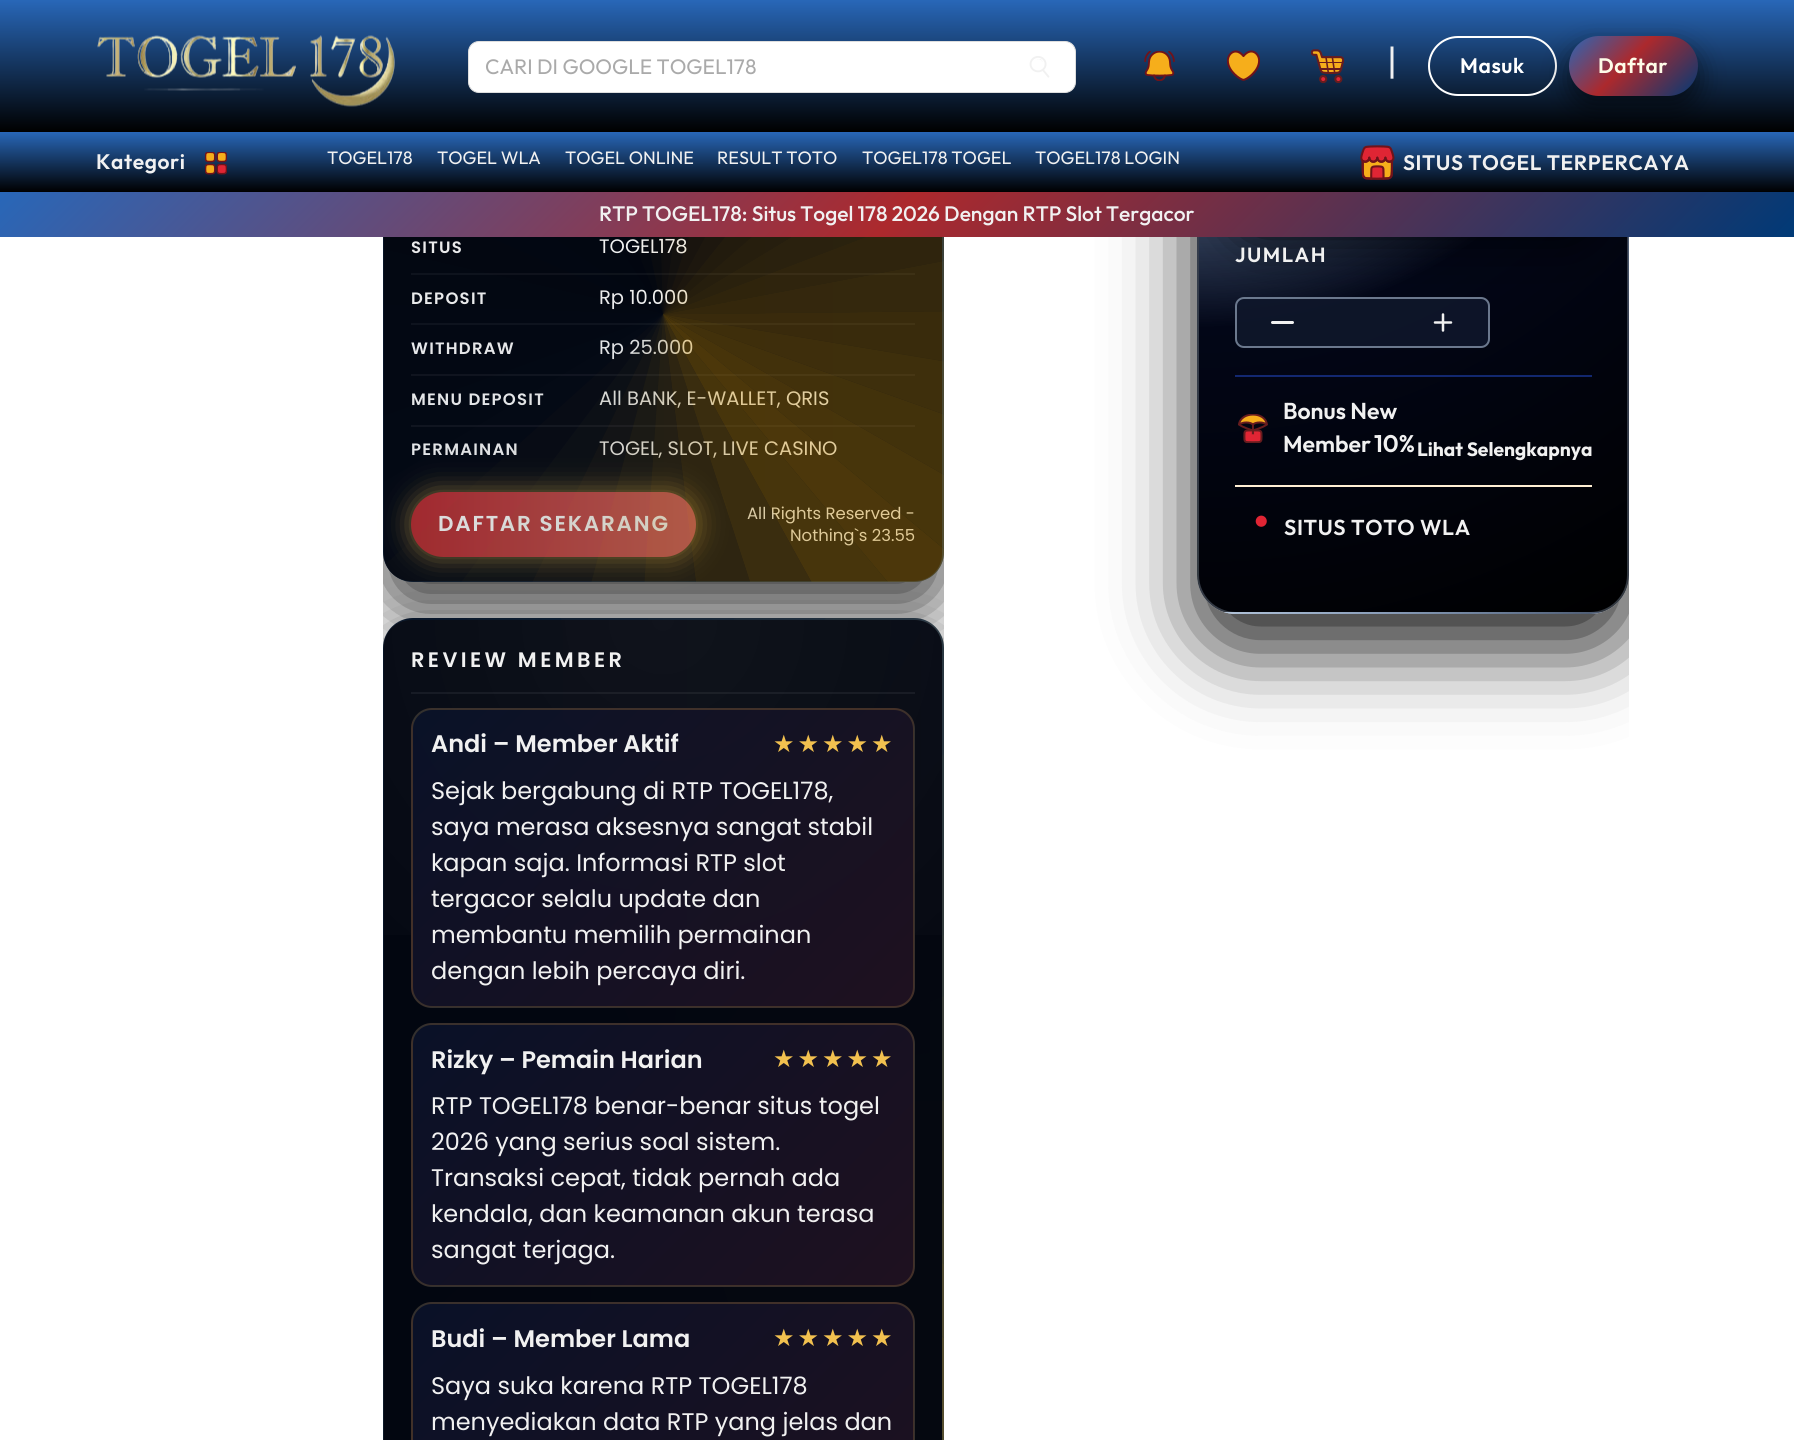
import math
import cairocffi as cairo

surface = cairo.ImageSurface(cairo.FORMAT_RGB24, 1794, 1440)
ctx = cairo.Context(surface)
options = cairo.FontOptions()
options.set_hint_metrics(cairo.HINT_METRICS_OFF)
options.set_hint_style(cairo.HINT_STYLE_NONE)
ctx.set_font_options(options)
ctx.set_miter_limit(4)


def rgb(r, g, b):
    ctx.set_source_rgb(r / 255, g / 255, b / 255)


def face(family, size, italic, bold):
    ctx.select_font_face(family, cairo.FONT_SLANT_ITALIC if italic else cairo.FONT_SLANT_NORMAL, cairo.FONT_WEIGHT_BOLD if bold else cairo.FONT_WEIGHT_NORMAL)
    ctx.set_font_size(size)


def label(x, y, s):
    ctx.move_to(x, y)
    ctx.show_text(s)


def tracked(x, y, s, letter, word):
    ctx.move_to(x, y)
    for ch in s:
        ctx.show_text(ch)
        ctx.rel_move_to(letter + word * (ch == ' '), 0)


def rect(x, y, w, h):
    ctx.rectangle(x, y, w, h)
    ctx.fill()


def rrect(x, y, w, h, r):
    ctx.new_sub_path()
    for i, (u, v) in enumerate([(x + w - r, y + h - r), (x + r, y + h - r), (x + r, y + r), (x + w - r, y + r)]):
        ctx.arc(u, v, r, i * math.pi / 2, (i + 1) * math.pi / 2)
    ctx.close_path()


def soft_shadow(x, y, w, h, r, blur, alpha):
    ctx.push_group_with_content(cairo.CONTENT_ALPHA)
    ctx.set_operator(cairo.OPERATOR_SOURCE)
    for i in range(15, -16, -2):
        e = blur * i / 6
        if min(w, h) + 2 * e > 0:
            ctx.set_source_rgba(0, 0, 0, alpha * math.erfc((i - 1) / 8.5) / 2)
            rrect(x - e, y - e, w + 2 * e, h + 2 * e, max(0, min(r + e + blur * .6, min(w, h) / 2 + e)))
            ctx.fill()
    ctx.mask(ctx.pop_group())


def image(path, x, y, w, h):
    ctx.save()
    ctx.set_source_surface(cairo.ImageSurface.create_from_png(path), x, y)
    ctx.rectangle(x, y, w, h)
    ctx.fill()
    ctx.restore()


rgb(255, 255, 255)
ctx.paint()
ctx.save()
ctx.rectangle(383, 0, 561, 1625)
ctx.clip()
rgb(0, 0, 0)
soft_shadow(383, 74, 561, 535, 30, 30, 0.75)
ctx.restore()
gradient = cairo.LinearGradient(383, 314, 944, 314)
gradient.add_color_stop_rgba(0, 0.027, 0.078, 0.153, 1)
gradient.add_color_stop_rgba(1, 0.071, 0.169, 0.294, 1)
ctx.set_source(gradient)
rrect(383, 47, 561, 535, 30)
ctx.fill()
ctx.save()
rrect(383, 47, 561, 535, 30)
ctx.clip()
ctx.set_source_rgba(0.012, 0.024, 0.059, 0.96)
rrect(384, 48, 558, 533, 27)
ctx.fill()
ctx.restore()
ctx.save()
ctx.rectangle(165, 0, 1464, 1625)
ctx.clip()
ctx.set_fill_rule(cairo.FILL_RULE_EVEN_ODD)
ctx.new_path()
ctx.move_to(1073, 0)
ctx.line_to(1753, 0)
ctx.line_to(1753, 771)
ctx.line_to(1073, 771)
ctx.close_path()
ctx.move_to(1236, -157)
ctx.line_to(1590, -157)
ctx.curve_to(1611.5, -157, 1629, -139.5, 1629, -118)
ctx.line_to(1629, 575)
ctx.curve_to(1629, 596.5, 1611.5, 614, 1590, 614)
ctx.line_to(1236, 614)
ctx.curve_to(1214.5, 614, 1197, 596.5, 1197, 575)
ctx.line_to(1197, -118)
ctx.curve_to(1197, -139.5, 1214.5, -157, 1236, -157)
ctx.close_path()
ctx.clip()
rgb(0, 0, 0)
soft_shadow(1197, -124, 432, 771, 39, 41, 0.9)
ctx.restore()
ctx.save()
rrect(1197, -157, 432, 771, 39)
ctx.clip()
gradient = cairo.RadialGradient(770, -156, 0, 770, -156, 880)
gradient.add_color_stop_rgba(0, 0.157, 0.404, 0.722, 0.25)
gradient.add_color_stop_rgba(0.55, 0.008, 0.024, 0.09, 1)
gradient.add_color_stop_rgba(1, 0, 0, 0, 1)
ctx.set_source(gradient)
rect(1197, 237, 2, 350)
gradient = cairo.RadialGradient(1199, -156, 0, 1199, -156, 880)
gradient.add_color_stop_rgba(0, 0.157, 0.404, 0.722, 0.25)
gradient.add_color_stop_rgba(0.55, 0.008, 0.024, 0.09, 1)
gradient.add_color_stop_rgba(1, 0, 0, 0, 1)
ctx.set_source(gradient)
rect(1199, 237, 429, 375)
gradient = cairo.RadialGradient(1628, -156, 0, 1628, -156, 880)
gradient.add_color_stop_rgba(0, 0.157, 0.404, 0.722, 0.25)
gradient.add_color_stop_rgba(0.55, 0.008, 0.024, 0.09, 1)
gradient.add_color_stop_rgba(1, 0, 0, 0, 1)
ctx.set_source(gradient)
rect(1628, 237, 1, 347)
gradient = cairo.RadialGradient(1199, 612, 0, 1199, 612, 880)
gradient.add_color_stop_rgba(0, 0.157, 0.404, 0.722, 0.25)
gradient.add_color_stop_rgba(0.55, 0.008, 0.024, 0.09, 1)
gradient.add_color_stop_rgba(1, 0, 0, 0, 1)
ctx.set_source(gradient)
rect(1224, 612, 378, 2)
ctx.restore()
rrect(1198, -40, 430, 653, 38)
ctx.set_source_rgba(0.58, 0.639, 0.722, 0.35)
ctx.stroke()
ctx.save()
rrect(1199, -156, 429, 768, 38)
ctx.clip()
rgb(0, 0, 0)
soft_shadow(1235, 161, 357, 75, 37.5, 26, 0.8)
ctx.restore()
gradient = cairo.LinearGradient(897, 0, 897, 132)
gradient.add_color_stop_rgba(0, 0.157, 0.404, 0.722, 1)
gradient.add_color_stop_rgba(1, 0, 0, 0, 1)
ctx.set_source(gradient)
rect(0, 0, 1794, 132)
image('image0.png', 97, 35, 298, 72)
rgb(255, 255, 255)
rrect(468.5, 41.5, 607, 51, 10.5)
ctx.fill_preserve()
rgb(222, 222, 222)
ctx.set_line_width(1)
ctx.stroke()
face('Outfit', 21, 0, 0)
rgb(170, 170, 170)
label(485, 74, 'CARI DI GOOGLE TOGEL178')
image('image1.png', 1029, 56, 21, 22)
image('image2.png', 1144, 51, 31, 30)
image('image3.png', 1227, 50, 33, 31)
image('image4.png', 1311, 49, 33, 34)
face('Outfit', 36, 0, 0)
rgb(241, 241, 241)
tracked(1387, 74, '|', 1, 0)
rrect(1429, 37, 127, 58, 29)
rgb(255, 255, 255)
ctx.set_line_width(2)
ctx.stroke()
face('Outfit SemiBold', 21, 0, 0)
tracked(1460, 73, 'Masuk', 0.6, 0)
gradient = cairo.LinearGradient(897, 132, 897, 192)
gradient.add_color_stop_rgba(0, 0.157, 0.404, 0.722, 1)
gradient.add_color_stop_rgba(1, 0, 0, 0, 1)
ctx.set_source(gradient)
rect(0, 132, 1794, 60)
rgb(0, 0, 0)
soft_shadow(1569, 48, 129, 60, 30, 13.5, 0.55)
gradient = cairo.LinearGradient(1586, 19, 1681, 113)
gradient.add_color_stop_rgba(0, 0.157, 0.404, 0.722, 1)
gradient.add_color_stop_rgba(0.45, 0.675, 0.161, 0.176, 1)
gradient.add_color_stop_rgba(1, 0, 0.227, 0.467, 1)
ctx.set_source(gradient)
rrect(1569, 36, 129, 60, 30)
ctx.fill()
rgb(254, 252, 232)
tracked(1598, 73, 'Daftar', 0.6, 0)
rgb(241, 241, 241)
tracked(96, 169, 'Kategori', 0.6, 0)
image('image5.png', 205, 152, 22, 23)
face('Outfit', 18, 0, 0)
label(327, 164, 'TOGEL178')
label(437, 164, 'TOGEL WLA')
label(565, 164, 'TOGEL ONLINE')
label(717, 164, 'RESULT TOTO')
label(862, 164, 'TOGEL178 TOGEL')
label(1035, 164, 'TOGEL178 LOGIN')
image('image6.png', 1360, 145, 35, 35)
face('Outfit SemiBold', 21, 0, 0)
tracked(1403, 170, 'SITUS TOGEL TERPERCAYA', 0.6, 0)
gradient = cairo.LinearGradient(437, -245, 1357, 674)
gradient.add_color_stop_rgba(0, 0.157, 0.404, 0.722, 1)
gradient.add_color_stop_rgba(0.5, 0.675, 0.161, 0.176, 1)
gradient.add_color_stop_rgba(1, 0, 0.227, 0.467, 1)
ctx.set_source(gradient)
rect(0, 192, 1794, 45)
face('Outfit Medium', 21, 0, 0)
rgb(241, 241, 241)
label(599, 221, 'RTP TOGEL178: Situs Togel 178 2026 Dengan RTP Slot Tergacor')
ctx.set_source_rgba(1, 1, 1, 0.05)
rect(411, 273, 504, 2)
face('Poppins SemiBold', 16.5, 0, 0)
rgb(241, 241, 241)
tracked(411, 253, 'SITUS', 1.25, 0)
face('Poppins', 19.5, 0, 0)
label(599, 253, 'TOGEL178')
ctx.set_source_rgba(1, 1, 1, 0.05)
rect(411, 323, 504, 2)
face('Poppins SemiBold', 16.5, 0, 0)
rgb(241, 241, 241)
tracked(411, 304, 'DEPOSIT', 1.25, 0)
face('Poppins', 19.5, 0, 0)
label(599, 304, 'Rp 10.000')
rgb(16, 19, 29)
rect(411, 374, 504, 2)
face('Poppins SemiBold', 16.5, 0, 0)
rgb(241, 241, 241)
tracked(411, 354, 'WITHDRAW', 1.25, 0)
face('Poppins', 19.5, 0, 0)
label(599, 354, 'Rp 25.000')
rgb(16, 19, 29)
rect(411, 425, 504, 2)
face('Poppins SemiBold', 16.5, 0, 0)
rgb(241, 241, 241)
tracked(411, 405, 'MENU DEPOSIT', 1.25, 0)
face('Poppins', 19.5, 0, 0)
label(599, 405, 'All BANK, E-WALLET, QRIS')
face('Poppins SemiBold', 16.5, 0, 0)
tracked(411, 455, 'PERMAINAN', 1.25, 0)
face('Poppins', 19.5, 0, 0)
label(599, 455, 'TOGEL, SLOT, LIVE CASINO')
rgb(242, 193, 79)
soft_shadow(411, 492, 285, 65, 32.5, 13.5, 0.55)
gradient = cairo.LinearGradient(411, 524, 696, 524)
gradient.add_color_stop_rgba(0, 0.675, 0.161, 0.176, 1)
gradient.add_color_stop_rgba(1, 0.753, 0.329, 0.341, 1)
ctx.set_source(gradient)
rrect(411, 492, 285, 65, 32.5)
ctx.fill()
face('Poppins SemiBold', 21.6, 0, 0)
rgb(241, 241, 241)
tracked(438, 531, 'DAFTAR SEKARANG', 1.75, 0)
face('Poppins', 16.5, 0, 0)
label(747, 519, 'All Rights Reserved -')
label(790, 541, 'Nothing`s 23.55')
image('image7.png', 383, 237, 561, 345)
ctx.save()
ctx.rectangle(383, 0, 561, 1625)
ctx.clip()
rgb(0, 0, 0)
soft_shadow(383, 645, 561, 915, 30, 30, 0.75)
ctx.restore()
gradient = cairo.LinearGradient(382, 1103, 944, 1103)
gradient.add_color_stop_rgba(0, 0.027, 0.078, 0.153, 1)
gradient.add_color_stop_rgba(1, 0.071, 0.169, 0.294, 1)
ctx.set_source(gradient)
rrect(383, 618, 561, 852, 30)
ctx.fill()
image('image8.png', 383, 618, 561, 822)
ctx.set_source_rgba(0.012, 0.024, 0.059, 0.96)
rrect(384, 620, 558, 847, 27)
ctx.fill()
gradient = cairo.RadialGradient(663, 620, 0, 663, 620, 1007)
gradient.add_color_stop_rgba(0, 1, 1, 1, 0.05)
gradient.add_color_stop_rgba(0.55, 1, 1, 1, 0)
ctx.set_source(gradient)
rect(384, 620, 558, 315)
ctx.set_source_rgba(1, 1, 1, 0.06)
rect(411, 692, 504, 2)
face('Poppins SemiBold', 21, 0, 0)
rgb(241, 241, 241)
tracked(411, 667, 'REVIEW MEMBER', 3.4, 0)
ctx.save()
rrect(411, 708, 504, 300, 21)
ctx.clip()
gradient = cairo.LinearGradient(464, 362, 863, 761)
gradient.add_color_stop_rgba(0, 0.039, 0.071, 0.157, 0.96)
gradient.add_color_stop_rgba(1, 0.125, 0.071, 0.125, 0.96)
ctx.set_source(gradient)
rect(423, 708, 480, 2)
gradient = cairo.LinearGradient(-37, 659, 362, 1058)
gradient.add_color_stop_rgba(0, 0.039, 0.071, 0.157, 0.96)
gradient.add_color_stop_rgba(1, 0.125, 0.071, 0.125, 0.96)
ctx.set_source(gradient)
rect(411, 720, 2, 276)
gradient = cairo.LinearGradient(464, 659, 863, 1058)
gradient.add_color_stop_rgba(0, 0.039, 0.071, 0.157, 0.96)
gradient.add_color_stop_rgba(1, 0.125, 0.071, 0.125, 0.96)
ctx.set_source(gradient)
rect(413, 710, 501, 297)
gradient = cairo.LinearGradient(965, 659, 1364, 1058)
gradient.add_color_stop_rgba(0, 0.039, 0.071, 0.157, 0.96)
gradient.add_color_stop_rgba(1, 0.125, 0.071, 0.125, 0.96)
ctx.set_source(gradient)
rect(914, 722, 1, 272)
gradient = cairo.LinearGradient(464, 956, 863, 1355)
gradient.add_color_stop_rgba(0, 0.039, 0.071, 0.157, 0.96)
gradient.add_color_stop_rgba(1, 0.125, 0.071, 0.125, 0.96)
ctx.set_source(gradient)
rect(425, 1007, 476, 1)
ctx.restore()
rrect(412, 709, 502, 298, 20)
ctx.set_source_rgba(0.949, 0.757, 0.31, 0.18)
ctx.stroke()
face('Poppins SemiBold', 24, 0, 0)
rgb(241, 241, 241)
label(431, 752, 'Andi – Member Aktif')
face('DejaVu Sans', 24, 0, 0)
gradient = cairo.LinearGradient(773, 744, 896, 744)
gradient.add_color_stop_rgba(1, 0.949, 0.757, 0.31, 1)
gradient.add_color_stop_rgba(1, 0.267, 0.267, 0.267, 1)
ctx.set_source(gradient)
tracked(773, 752, '★★★★★', 3, 0)
face('Poppins', 24, 0, 0)
rgb(241, 241, 241)
label(431, 799, 'Sejak bergabung di RTP TOGEL178,')
label(431, 835, 'saya merasa aksesnya sangat stabil')
label(431, 871, 'kapan saja. Informasi RTP slot')
label(431, 907, 'tergacor selalu update dan')
label(431, 943, 'membantu memilih permainan')
label(431, 979, 'dengan lebih percaya diri.')
ctx.save()
rrect(411, 1023, 504, 264, 21)
ctx.clip()
gradient = cairo.LinearGradient(473, 704, 854, 1085)
gradient.add_color_stop_rgba(0, 0.039, 0.071, 0.157, 0.96)
gradient.add_color_stop_rgba(1, 0.125, 0.071, 0.125, 0.96)
ctx.set_source(gradient)
rect(423, 1023, 480, 2)
gradient = cairo.LinearGradient(-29, 965, 353, 1346)
gradient.add_color_stop_rgba(0, 0.039, 0.071, 0.153, 1)
gradient.add_color_stop_rgba(1, 0.122, 0.071, 0.122, 1)
ctx.set_source(gradient)
rect(411, 1035, 2, 240)
gradient = cairo.LinearGradient(473, 965, 854, 1346)
gradient.add_color_stop_rgba(0, 0.039, 0.071, 0.157, 0.96)
gradient.add_color_stop_rgba(1, 0.125, 0.071, 0.125, 0.96)
ctx.set_source(gradient)
rect(413, 1025, 501, 261)
gradient = cairo.LinearGradient(974, 965, 1355, 1346)
gradient.add_color_stop_rgba(0, 0.039, 0.071, 0.153, 1)
gradient.add_color_stop_rgba(1, 0.122, 0.071, 0.122, 1)
ctx.set_source(gradient)
rect(914, 1037, 1, 236)
gradient = cairo.LinearGradient(473, 1226, 854, 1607)
gradient.add_color_stop_rgba(0, 0.039, 0.071, 0.157, 0.96)
gradient.add_color_stop_rgba(1, 0.125, 0.071, 0.125, 0.96)
ctx.set_source(gradient)
rect(425, 1286, 476, 1)
ctx.restore()
rrect(412, 1024, 502, 262, 20)
ctx.set_source_rgba(0.949, 0.757, 0.31, 0.18)
ctx.stroke()
face('Poppins SemiBold', 24, 0, 0)
rgb(241, 241, 241)
label(431, 1068, 'Rizky – Pemain Harian')
face('DejaVu Sans', 24, 0, 0)
gradient = cairo.LinearGradient(773, 1059, 896, 1059)
gradient.add_color_stop_rgba(0.96, 0.949, 0.757, 0.31, 1)
gradient.add_color_stop_rgba(0.96, 0.267, 0.267, 0.267, 1)
ctx.set_source(gradient)
tracked(773, 1067, '★★★★★', 3, 0)
face('Poppins', 24, 0, 0)
rgb(241, 241, 241)
label(431, 1114, 'RTP TOGEL178 benar-benar situs togel')
label(431, 1150, '2026 yang serius soal sistem.')
label(431, 1186, 'Transaksi cepat, tidak pernah ada')
label(431, 1222, 'kendala, dan keamanan akun terasa')
label(431, 1258, 'sangat terjaga.')
ctx.save()
rrect(411, 1302, 504, 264, 21)
ctx.clip()
gradient = cairo.LinearGradient(473, 983, 854, 1364)
gradient.add_color_stop_rgba(0, 0.039, 0.071, 0.157, 0.96)
gradient.add_color_stop_rgba(1, 0.125, 0.071, 0.125, 0.96)
ctx.set_source(gradient)
rect(423, 1302, 480, 2)
gradient = cairo.LinearGradient(-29, 1244, 353, 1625)
gradient.add_color_stop_rgba(0, 0.039, 0.071, 0.153, 1)
gradient.add_color_stop_rgba(1, 0.122, 0.071, 0.122, 1)
ctx.set_source(gradient)
rect(411, 1314, 2, 126)
gradient = cairo.LinearGradient(473, 1244, 854, 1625)
gradient.add_color_stop_rgba(0, 0.039, 0.071, 0.157, 0.96)
gradient.add_color_stop_rgba(1, 0.125, 0.071, 0.125, 0.96)
ctx.set_source(gradient)
rect(413, 1304, 501, 136)
gradient = cairo.LinearGradient(974, 1244, 1355, 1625)
gradient.add_color_stop_rgba(0, 0.039, 0.071, 0.153, 1)
gradient.add_color_stop_rgba(1, 0.122, 0.071, 0.122, 1)
ctx.set_source(gradient)
rect(914, 1316, 1, 124)
ctx.restore()
rrect(412, 1303, 502, 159, 20)
ctx.set_source_rgba(0.949, 0.757, 0.31, 0.18)
ctx.stroke()
face('Poppins SemiBold', 24, 0, 0)
rgb(241, 241, 241)
label(431, 1347, 'Budi – Member Lama')
face('DejaVu Sans', 24, 0, 0)
gradient = cairo.LinearGradient(773, 1338, 896, 1338)
gradient.add_color_stop_rgba(1, 0.949, 0.757, 0.31, 1)
gradient.add_color_stop_rgba(1, 0.267, 0.267, 0.267, 1)
ctx.set_source(gradient)
tracked(773, 1346, '★★★★★', 3, 0)
face('Poppins', 24, 0, 0)
rgb(241, 241, 241)
label(431, 1394, 'Saya suka karena RTP TOGEL178')
label(431, 1430, 'menyediakan data RTP yang jelas dan')
face('Outfit SemiBold', 20.5, 0, 0)
tracked(1235, 262, 'JUMLAH', 1.5, 0)
ctx.set_source_rgba(0.059, 0.09, 0.165, 0.9)
rrect(1235, 297, 255, 51, 9)
ctx.fill()
rrect(1236, 298, 253, 49, 8)
ctx.set_source_rgba(0.58, 0.639, 0.722, 0.7)
ctx.stroke()
ctx.new_path()
ctx.move_to(1272.5, 322.5)
ctx.line_to(1292.5, 322.5)
rgb(241, 241, 241)
ctx.set_line_width(3)
ctx.set_line_cap(cairo.LINE_CAP_ROUND)
ctx.stroke()
image('image9.png', 1433, 313, 20, 19)
ctx.set_source_rgba(0.118, 0.251, 0.686, 0.6)
rect(1235, 375, 357, 2)
image('image10.png', 1238, 414, 30, 29)
face('Outfit SemiBold', 23, 0, 0)
rgb(241, 241, 241)
label(1283, 419, 'Bonus New')
label(1283, 452, 'Member')
face('Outfit SemiBold', 24, 0, 0)
label(1374, 452, '10%')
face('Outfit', 19.25, 0, 1)
label(1417, 456, 'Lihat Selengkapnya')
rgb(255, 239, 212)
rect(1235, 485, 357, 2)
image('image11.png', 1255, 515, 12, 12)
face('Outfit SemiBold', 21.6, 0, 0)
rgb(241, 241, 241)
tracked(1284, 535, 'SITUS TOTO WLA', 0.6, 0)
surface.write_to_png('render.png')
